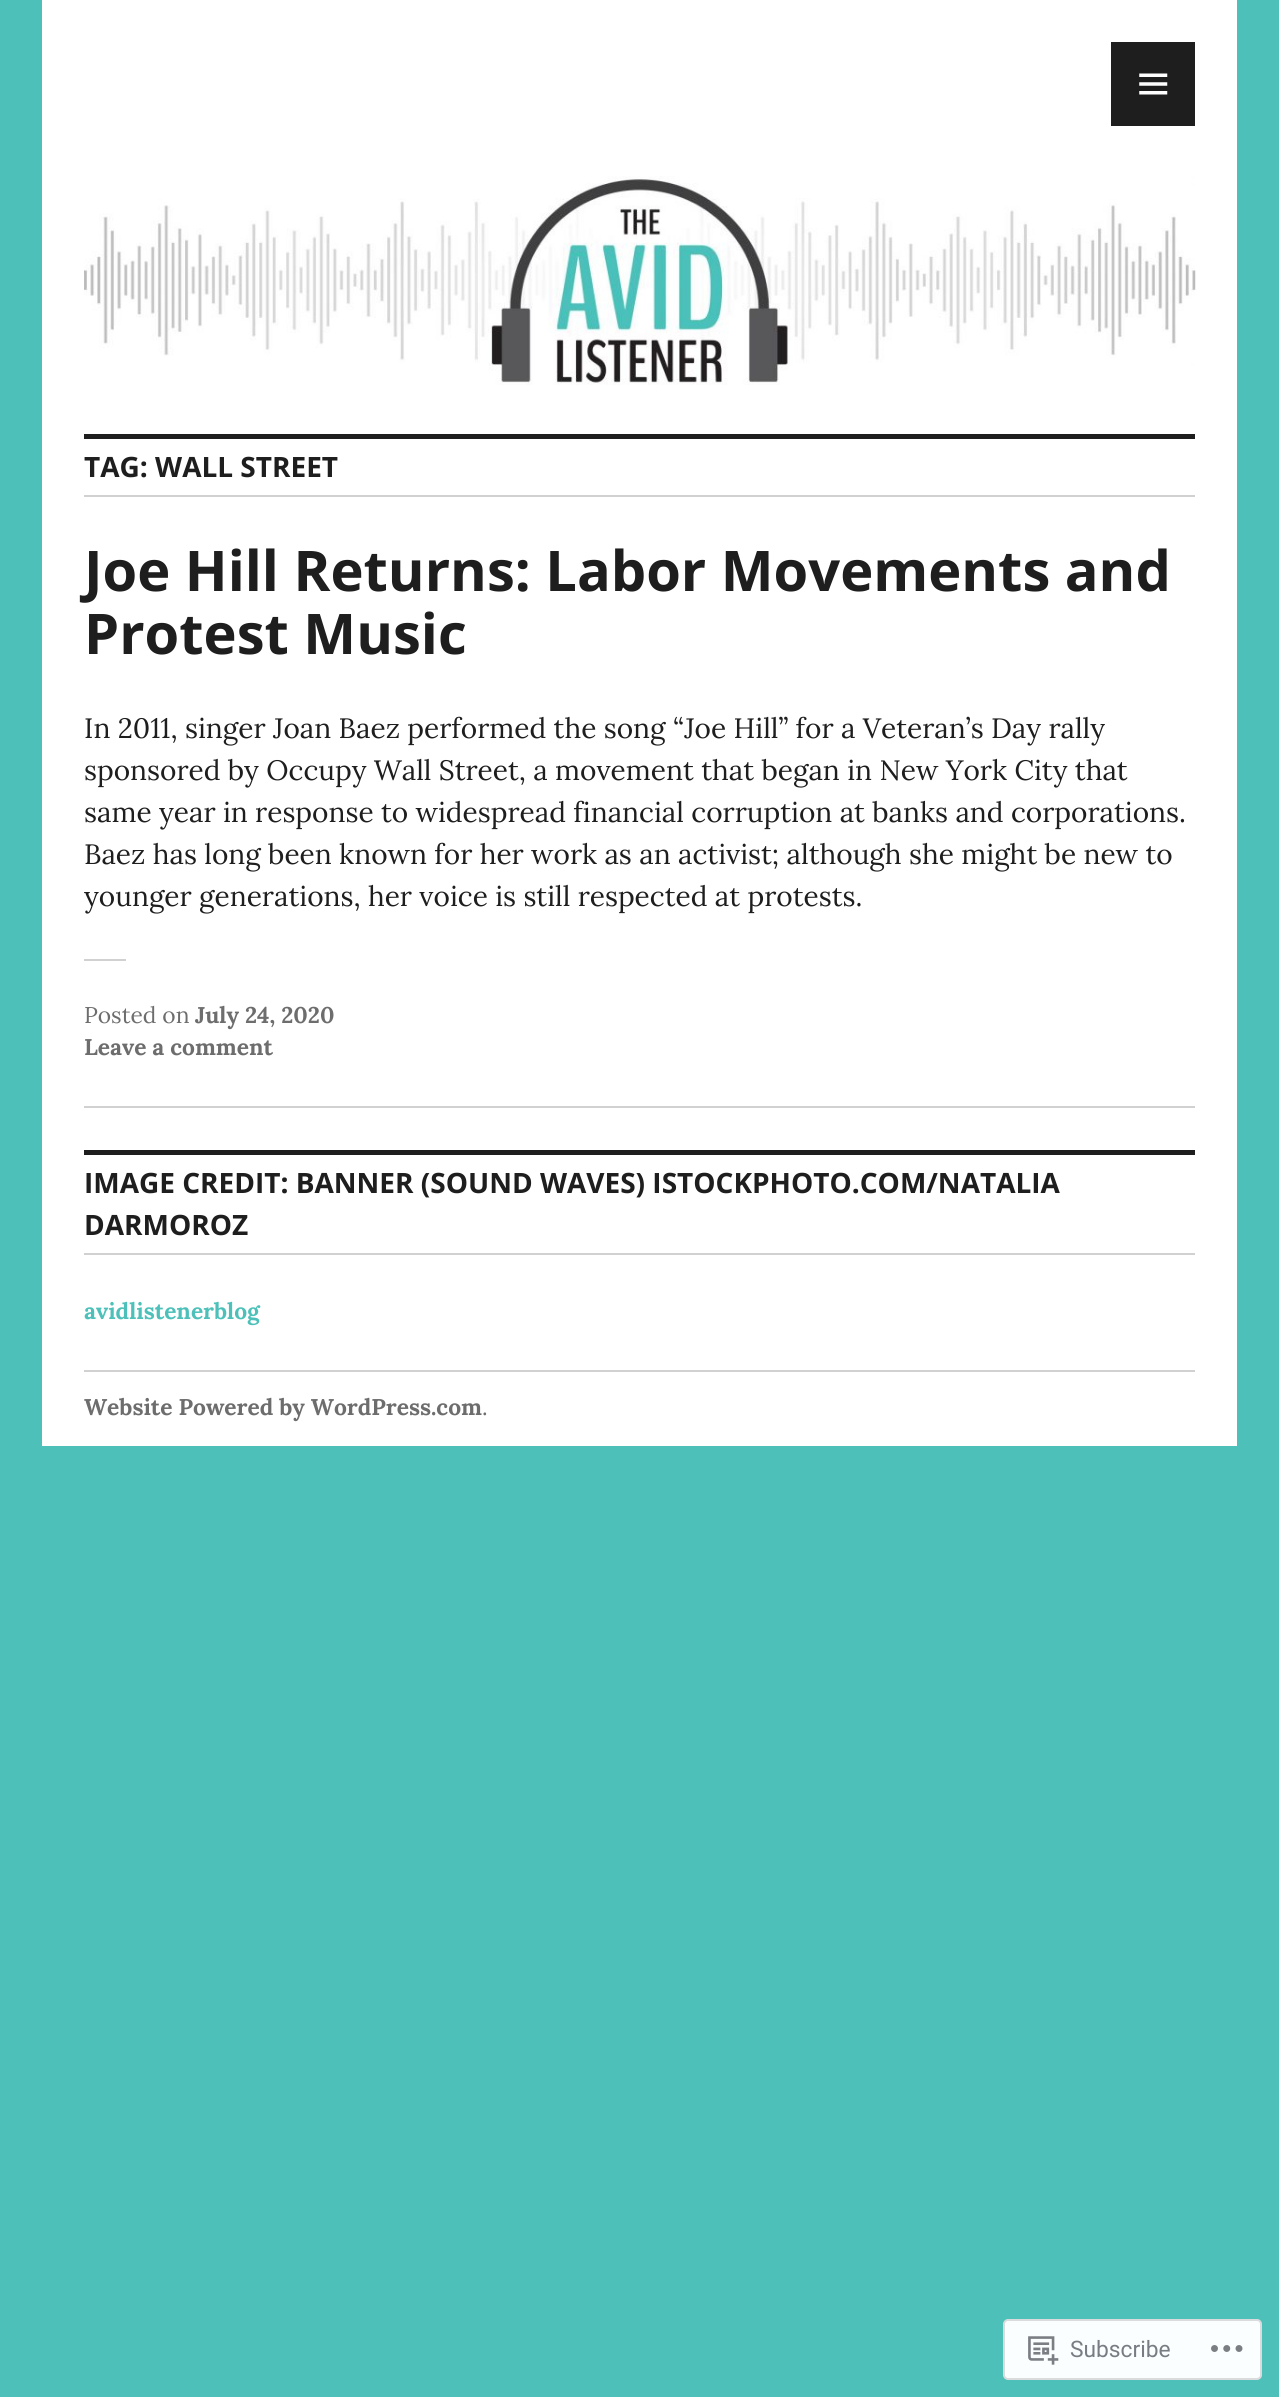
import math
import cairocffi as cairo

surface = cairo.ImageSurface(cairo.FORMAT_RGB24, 1279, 2397)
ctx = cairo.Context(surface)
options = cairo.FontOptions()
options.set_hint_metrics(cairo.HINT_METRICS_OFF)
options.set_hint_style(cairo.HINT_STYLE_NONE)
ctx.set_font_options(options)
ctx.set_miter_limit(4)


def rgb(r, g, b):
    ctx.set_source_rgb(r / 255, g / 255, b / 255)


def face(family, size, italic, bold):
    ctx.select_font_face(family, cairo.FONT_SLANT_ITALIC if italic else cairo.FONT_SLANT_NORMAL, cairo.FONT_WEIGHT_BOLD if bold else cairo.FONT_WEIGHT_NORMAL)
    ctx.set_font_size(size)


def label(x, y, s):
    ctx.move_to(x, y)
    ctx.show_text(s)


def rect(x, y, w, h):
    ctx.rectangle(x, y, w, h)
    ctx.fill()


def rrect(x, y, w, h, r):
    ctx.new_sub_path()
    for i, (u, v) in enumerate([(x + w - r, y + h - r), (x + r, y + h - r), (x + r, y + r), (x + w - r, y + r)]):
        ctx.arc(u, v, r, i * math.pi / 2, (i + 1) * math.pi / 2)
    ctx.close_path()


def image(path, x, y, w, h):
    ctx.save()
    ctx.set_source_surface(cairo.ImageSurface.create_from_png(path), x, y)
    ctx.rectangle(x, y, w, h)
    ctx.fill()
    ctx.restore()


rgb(77, 193, 185)
ctx.paint()
rgb(255, 255, 255)
rect(42, 0, 1195, 1446)
rgb(30, 30, 30)
rect(1111, 42, 84, 84)
image('image0.png', 1139, 73, 29, 22)
image('image1.png', 84, 176, 1112, 209)
rect(84, 434, 1111, 5)
rgb(209, 209, 209)
rect(84, 495, 1111, 2)
face('Open Sans', 28, 0, 1)
rgb(30, 30, 30)
label(84, 477, 'TAG: WALL STREET')
rgb(209, 209, 209)
rect(84, 1106, 1111, 2)
face('Open Sans', 56, 0, 1)
rgb(30, 30, 30)
label(84, 591, 'Joe Hill Returns: Labor Movements and')
label(84, 654, 'Protest Music')
face('Lora', 28, 0, 0)
label(84, 738, 'In 2011, singer Joan Baez performed the song “Joe Hill” for a Veteran’s Day rally')
label(84, 780, 'sponsored by Occupy Wall Street, a movement that began in New York City that')
label(84, 822, 'same year in response to widespread financial corruption at banks and corporations.')
label(84, 864, 'Baez has long been known for her work as an activist; although she might be new to')
label(84, 906, 'younger generations, her voice is still respected at protests.')
rgb(209, 209, 209)
rect(84, 959, 42, 2)
face('Lora', 22.75, 0, 0)
rgb(109, 109, 109)
label(84, 1023, 'Posted on')
face('Lora', 22.75, 0, 1)
label(195, 1023, 'July 24, 2020')
label(84, 1055, 'Leave a comment')
rgb(30, 30, 30)
rect(84, 1150, 1111, 5)
rgb(209, 209, 209)
rect(84, 1253, 1111, 2)
face('Open Sans', 28, 0, 1)
rgb(30, 30, 30)
label(84, 1193, 'IMAGE CREDIT: BANNER (SOUND WAVES) ISTOCKPHOTO.COM/NATALIA')
label(84, 1235, 'DARMOROZ')
face('Lora', 22.75, 0, 1)
rgb(77, 193, 185)
label(84, 1319, 'avidlistenerblog')
rgb(209, 209, 209)
rect(84, 1370, 1111, 2)
rgb(109, 109, 109)
label(84, 1415, 'Website Powered by WordPress.com')
face('Lora', 22.75, 0, 0)
label(482, 1415, '.')
rgb(251, 254, 254)
rrect(1004, 2320, 257, 59, 4)
ctx.fill_preserve()
rgb(217, 219, 221)
ctx.stroke()
image('image2.png', 1028, 2336, 31, 29)
face('Roboto', 22.75, 0, 0)
rgb(119, 125, 131)
label(1070, 2357, 'Subscribe')
image('image3.png', 1211, 2345, 32, 7)
surface.write_to_png('render.png')
